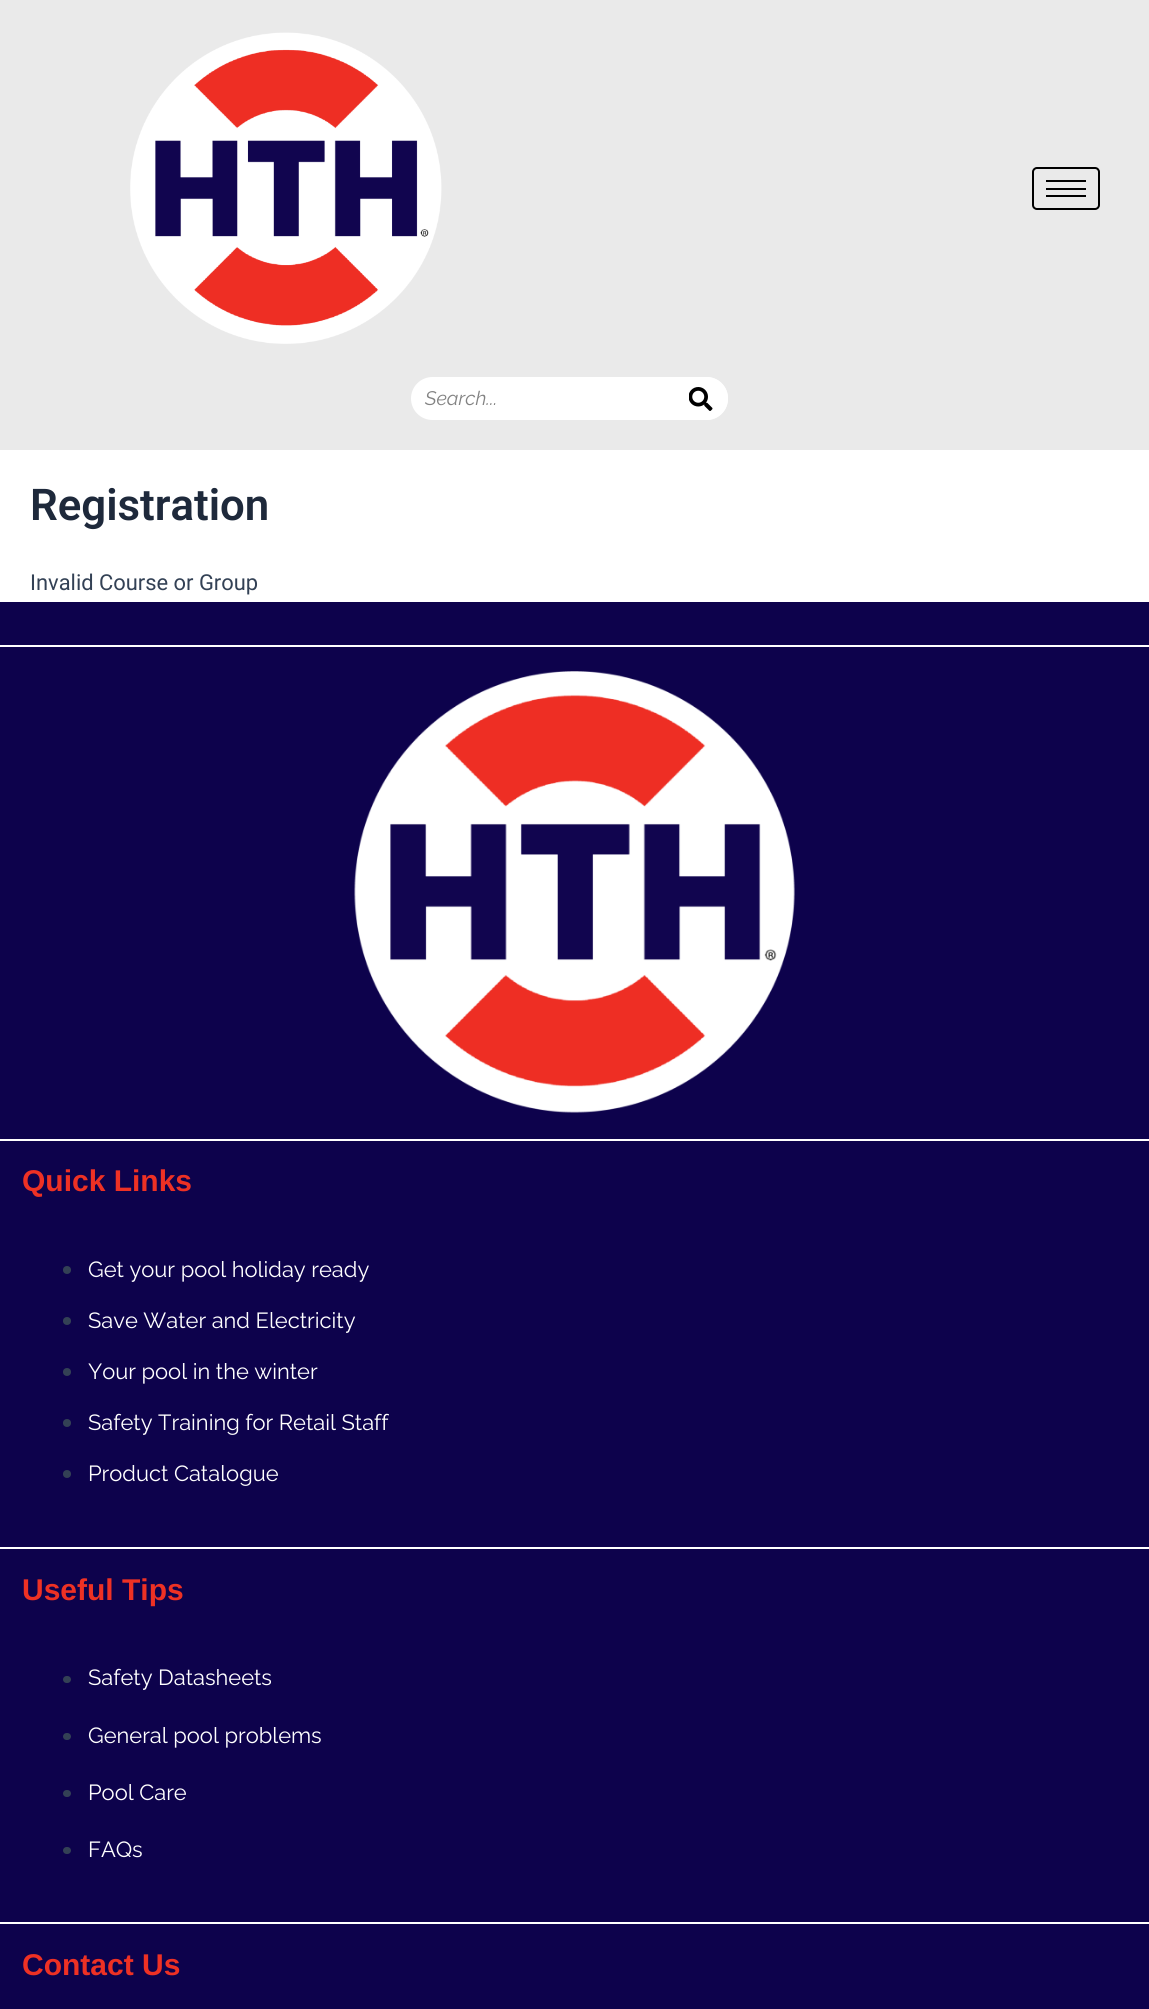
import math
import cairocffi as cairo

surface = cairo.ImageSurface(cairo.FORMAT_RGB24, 1149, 2009)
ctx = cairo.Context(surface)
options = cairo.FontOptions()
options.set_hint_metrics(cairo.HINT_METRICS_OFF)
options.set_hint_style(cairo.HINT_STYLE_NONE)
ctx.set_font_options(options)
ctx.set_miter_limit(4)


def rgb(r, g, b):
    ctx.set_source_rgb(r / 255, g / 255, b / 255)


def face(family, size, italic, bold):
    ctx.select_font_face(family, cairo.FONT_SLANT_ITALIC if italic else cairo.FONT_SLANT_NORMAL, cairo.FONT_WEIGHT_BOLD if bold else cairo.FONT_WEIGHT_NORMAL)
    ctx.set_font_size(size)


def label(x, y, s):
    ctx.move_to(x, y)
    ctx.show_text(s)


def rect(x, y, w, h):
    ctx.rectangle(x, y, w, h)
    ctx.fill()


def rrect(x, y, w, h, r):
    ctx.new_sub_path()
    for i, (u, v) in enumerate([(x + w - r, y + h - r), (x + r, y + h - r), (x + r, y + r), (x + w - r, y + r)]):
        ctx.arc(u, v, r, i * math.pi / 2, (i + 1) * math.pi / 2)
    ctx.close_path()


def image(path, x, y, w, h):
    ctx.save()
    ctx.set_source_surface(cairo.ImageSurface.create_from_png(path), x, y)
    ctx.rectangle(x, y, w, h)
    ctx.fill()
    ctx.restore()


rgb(255, 255, 255)
ctx.paint()
rgb(234, 234, 234)
rect(0, 0, 1149, 450)
image('image0.png', 130, 32, 312, 312)
rrect(1033, 168, 66, 41, 4)
rgb(0, 0, 0)
ctx.stroke()
rect(1046, 180, 40, 2)
rect(1046, 188, 40, 2)
rect(1046, 195, 40, 2)
rgb(255, 255, 255)
rrect(411, 377, 317, 43, 21.5)
ctx.fill()
face('Raleway', 19.5, 1, 0)
rgb(130, 130, 130)
label(425, 405, 'Search...')
rgb(255, 255, 255)
ctx.new_path()
ctx.move_to(675, 377)
ctx.line_to(706.5, 377)
ctx.curve_to(718.5, 377, 728, 386.5, 728, 398.5)
ctx.curve_to(728, 410.5, 718.5, 420, 706.5, 420)
ctx.line_to(675, 420)
ctx.close_path()
ctx.fill()
image('image1.png', 689, 387, 24, 24)
face('Roboto SemiBold', 43.75, 0, 0)
rgb(30, 41, 59)
label(30, 520, 'Registration')
face('Roboto', 21.9, 0, 0)
rgb(51, 65, 85)
label(30, 590, 'Invalid Course or Group')
rgb(13, 2, 76)
rect(0, 602, 1149, 1407)
rgb(255, 255, 255)
rect(0, 645, 1149, 2)
image('image2.png', 354, 671, 441, 442)
rect(0, 1139, 1149, 2)
face('Liberation Sans', 30, 0, 1)
rgb(238, 49, 36)
label(22, 1191, 'Quick Links')
rgb(51, 65, 85)
ctx.new_path()
ctx.arc(67, 1270, 4, 0, 2 * math.pi)
ctx.fill()
face('Raleway', 21.9, 0, 0)
rgb(255, 255, 255)
label(88, 1277, 'Get your pool holiday ready')
rgb(51, 65, 85)
ctx.new_path()
ctx.arc(67, 1321, 4, 0, 2 * math.pi)
ctx.fill()
rgb(255, 255, 255)
label(88, 1328, 'Save Water and Electricity')
rgb(51, 65, 85)
ctx.new_path()
ctx.arc(67, 1372, 4, 0, 2 * math.pi)
ctx.fill()
rgb(255, 255, 255)
label(88, 1379, 'Your pool in the winter')
rgb(51, 65, 85)
ctx.new_path()
ctx.arc(67, 1423, 4, 0, 2 * math.pi)
ctx.fill()
rgb(255, 255, 255)
label(88, 1430, 'Safety Training for Retail Staff')
rgb(51, 65, 85)
ctx.new_path()
ctx.arc(67, 1474, 4, 0, 2 * math.pi)
ctx.fill()
rgb(255, 255, 255)
label(88, 1481, 'Product Catalogue')
rect(0, 1547, 1149, 2)
face('Liberation Sans', 30, 0, 1)
rgb(238, 49, 36)
label(22, 1600, 'Useful Tips')
rgb(51, 65, 85)
rrect(63, 1676, 8, 7, 3.5)
ctx.fill()
face('Raleway', 21.9, 0, 0)
rgb(255, 255, 255)
label(88, 1685, 'Safety Datasheets')
rgb(51, 65, 85)
rrect(63, 1733, 8, 7, 3.5)
ctx.fill()
rgb(255, 255, 255)
label(88, 1743, 'General pool problems')
rgb(51, 65, 85)
rrect(63, 1790, 8, 7, 3.5)
ctx.fill()
rgb(255, 255, 255)
label(88, 1800, 'Pool Care')
rgb(51, 65, 85)
rrect(63, 1847, 8, 7, 3.5)
ctx.fill()
rgb(255, 255, 255)
label(88, 1857, 'FAQs')
rect(0, 1922, 1149, 2)
face('Liberation Sans', 30, 0, 1)
rgb(238, 49, 36)
label(22, 1975, 'Contact Us')
surface.write_to_png('render.png')
